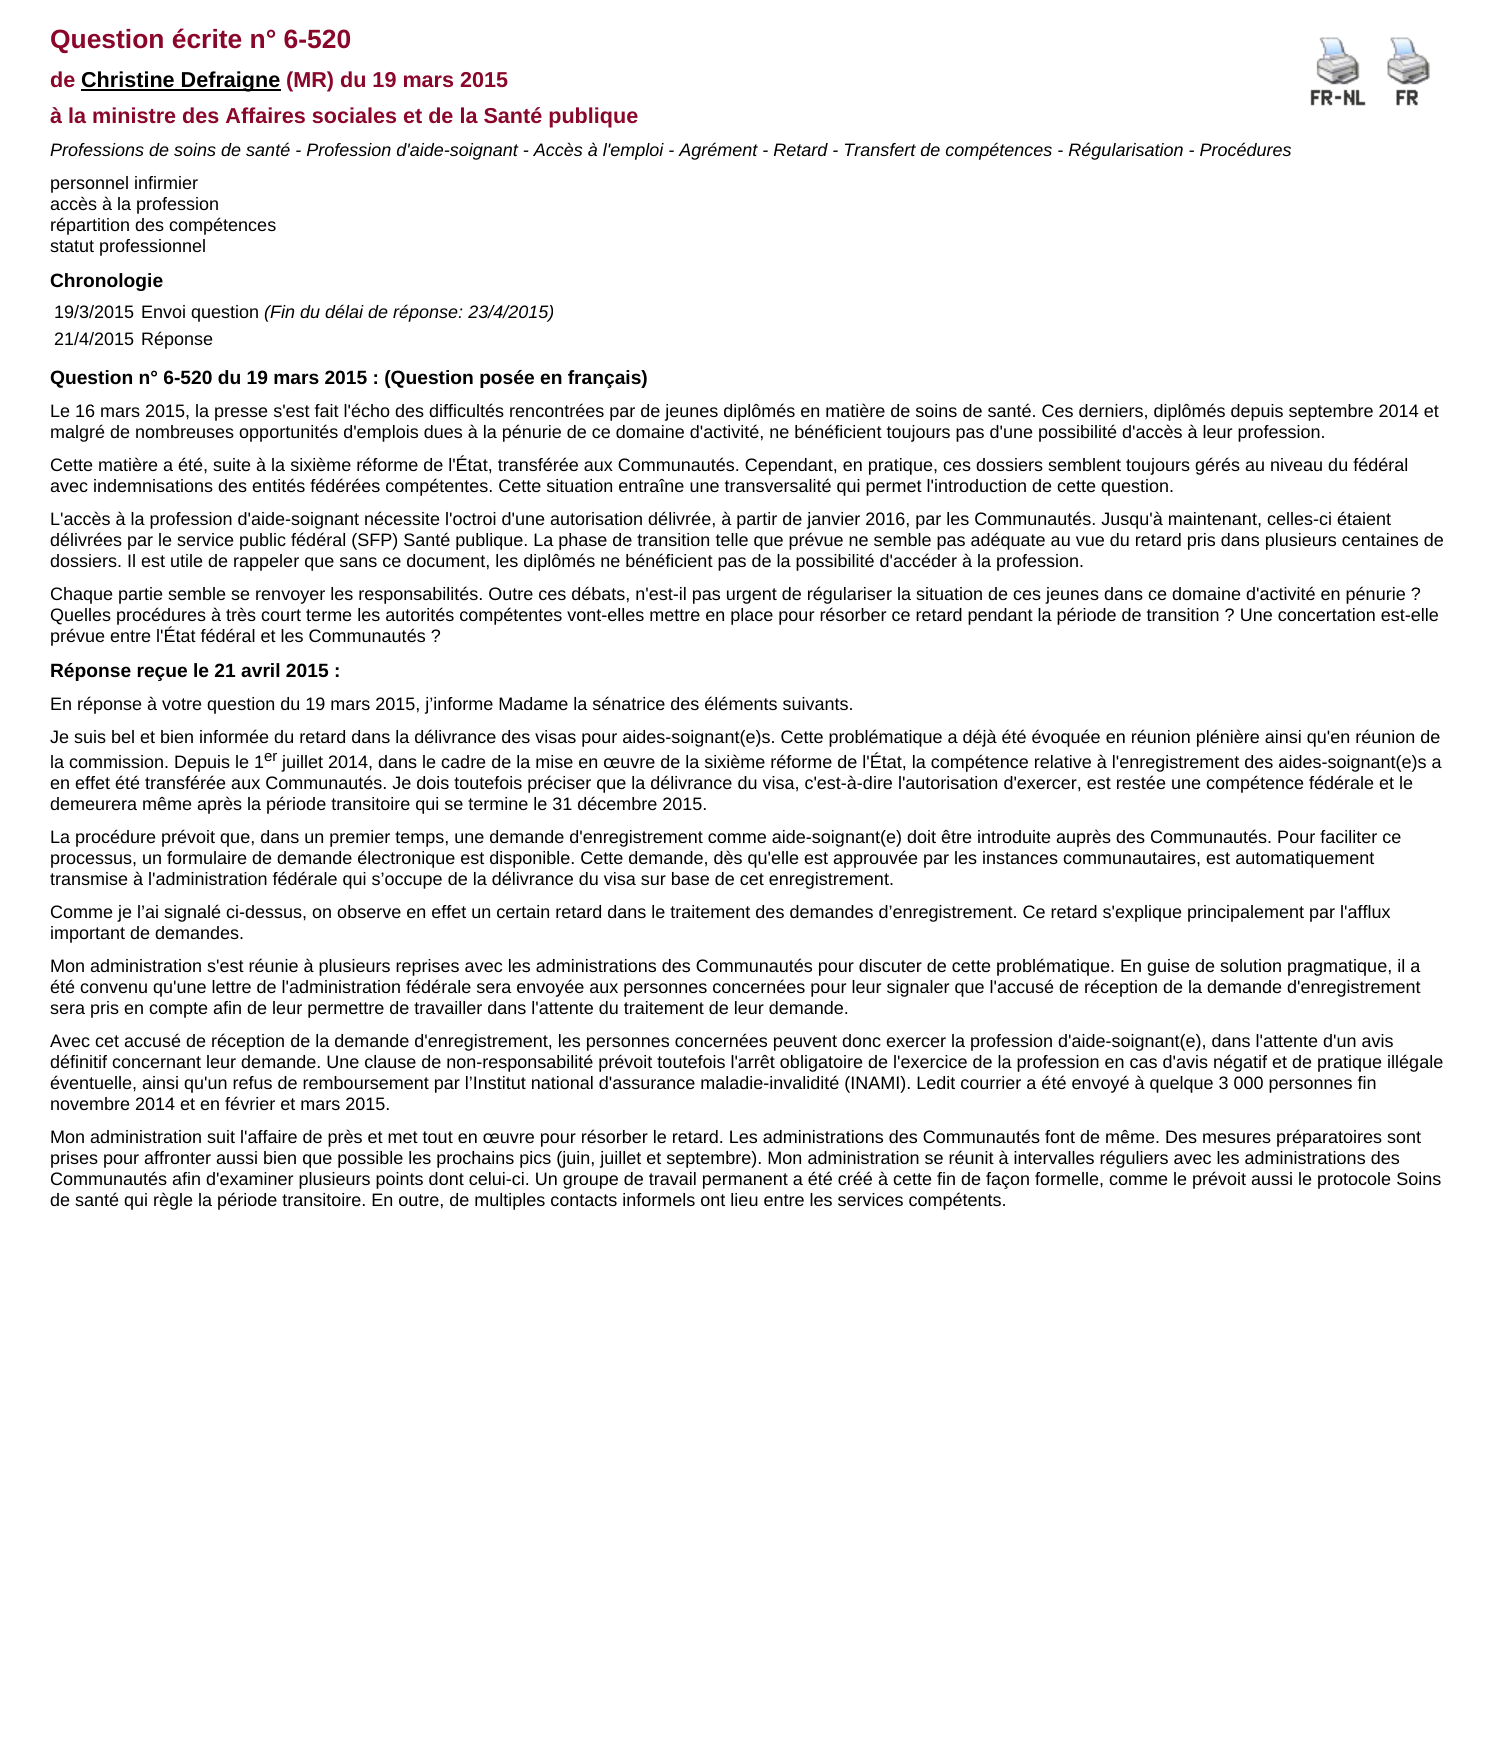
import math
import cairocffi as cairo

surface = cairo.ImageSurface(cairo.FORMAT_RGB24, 1493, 1741)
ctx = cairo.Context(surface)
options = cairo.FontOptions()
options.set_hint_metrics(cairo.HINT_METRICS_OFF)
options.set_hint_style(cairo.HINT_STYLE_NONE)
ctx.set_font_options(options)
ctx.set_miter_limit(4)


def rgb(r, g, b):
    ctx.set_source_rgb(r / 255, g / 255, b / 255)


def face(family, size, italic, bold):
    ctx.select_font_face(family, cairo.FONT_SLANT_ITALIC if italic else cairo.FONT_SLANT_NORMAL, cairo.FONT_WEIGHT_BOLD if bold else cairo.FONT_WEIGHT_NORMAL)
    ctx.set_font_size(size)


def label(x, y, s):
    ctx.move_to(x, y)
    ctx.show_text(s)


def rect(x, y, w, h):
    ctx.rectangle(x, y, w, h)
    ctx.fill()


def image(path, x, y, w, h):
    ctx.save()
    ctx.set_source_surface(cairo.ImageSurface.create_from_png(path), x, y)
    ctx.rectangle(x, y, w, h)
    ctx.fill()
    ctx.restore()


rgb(255, 255, 255)
ctx.paint()
face('Liberation Sans', 26.4, 0, 1)
rgb(138, 6, 43)
label(50, 48, 'Question écrite n° 6-520')
image('image0.png', 1310, 37, 56, 69)
image('image1.png', 1387, 37, 43, 69)
face('Liberation Sans', 21.6, 0, 1)
label(50, 87, 'de')
rgb(0, 0, 0)
rect(81, 89, 200, 2)
label(81, 87, 'Christine Defraigne')
rgb(138, 6, 43)
label(286, 87, '(MR) du 19 mars 2015')
label(50, 123, 'à la ministre des Affaires sociales et de la Santé publique')
face('Liberation Sans', 18, 1, 0)
rgb(0, 0, 0)
label(50, 156, 'Professions de soins de santé - Profession d\'aide-soignant - Accès à l\'emploi - Agrément - Retard - Transfert de compétences - Régularisation - Procédures')
face('Liberation Sans', 18, 0, 0)
label(50, 189, 'personnel infirmier')
label(50, 210, 'accès à la profession')
label(50, 231, 'répartition des compétences')
label(50, 252, 'statut professionnel')
face('Liberation Sans', 19.2, 0, 1)
label(50, 287, 'Chronologie')
face('Liberation Sans', 18, 0, 0)
label(54, 318, '19/3/2015')
label(141, 318, 'Envoi question')
face('Liberation Sans', 18, 1, 0)
label(264, 318, '(Fin du délai de réponse: 23/4/2015)')
face('Liberation Sans', 18, 0, 0)
label(54, 345, '21/4/2015')
label(141, 345, 'Réponse')
face('Liberation Sans', 19.2, 0, 1)
label(50, 384, 'Question n° 6-520 du 19 mars 2015 : (Question posée en français)')
face('Liberation Sans', 18, 0, 0)
label(50, 417, 'Le 16 mars 2015, la presse s\'est fait l\'écho des difficultés rencontrées par de jeunes diplômés en matière de soins de santé. Ces derniers, diplômés depuis septembre 2014 et')
label(50, 438, 'malgré de nombreuses opportunités d\'emplois dues à la pénurie de ce domaine d\'activité, ne bénéficient toujours pas d\'une possibilité d\'accès à leur profession.')
label(50, 471, 'Cette matière a été, suite à la sixième réforme de l\'État, transférée aux Communautés. Cependant, en pratique, ces dossiers semblent toujours gérés au niveau du fédéral')
label(50, 492, 'avec indemnisations des entités fédérées compétentes. Cette situation entraîne une transversalité qui permet l\'introduction de cette question.')
label(50, 525, 'L\'accès à la profession d\'aide-soignant nécessite l\'octroi d\'une autorisation délivrée, à partir de janvier 2016, par les Communautés. Jusqu\'à maintenant, celles-ci étaient')
label(50, 546, 'délivrées par le service public fédéral (SFP) Santé publique. La phase de transition telle que prévue ne semble pas adéquate au vue du retard pris dans plusieurs centaines de')
label(50, 567, 'dossiers. Il est utile de rappeler que sans ce document, les diplômés ne bénéficient pas de la possibilité d\'accéder à la profession.')
label(50, 600, 'Chaque partie semble se renvoyer les responsabilités. Outre ces débats, n\'est-il pas urgent de régulariser la situation de ces jeunes dans ce domaine d\'activité en pénurie ?')
label(50, 621, 'Quelles procédures à très court terme les autorités compétentes vont-elles mettre en place pour résorber ce retard pendant la période de transition ? Une concertation est-elle')
label(50, 642, 'prévue entre l\'État fédéral et les Communautés ?')
face('Liberation Sans', 19.2, 0, 1)
label(50, 677, 'Réponse reçue le 21 avril 2015 :')
face('Liberation Sans', 18, 0, 0)
label(50, 710, 'En réponse à votre question du 19 mars 2015, j’informe Madame la sénatrice des éléments suivants.')
label(50, 743, 'Je suis bel et bien informée du retard dans la délivrance des visas pour aides-soignant(e)s. Cette problématique a déjà été évoquée en réunion plénière ainsi qu\'en réunion de')
label(50, 768, 'la commission. Depuis le 1')
face('Liberation Sans', 15, 0, 0)
label(264, 761, 'er')
face('Liberation Sans', 18, 0, 0)
label(282, 768, 'juillet 2014, dans le cadre de la mise en œuvre de la sixième réforme de l\'État, la compétence relative à l\'enregistrement des aides-soignant(e)s a')
label(50, 789, 'en effet été transférée aux Communautés. Je dois toutefois préciser que la délivrance du visa, c\'est-à-dire l\'autorisation d\'exercer, est restée une compétence fédérale et le')
label(50, 810, 'demeurera même après la période transitoire qui se termine le 31 décembre 2015.')
label(50, 843, 'La procédure prévoit que, dans un premier temps, une demande d\'enregistrement comme aide-soignant(e) doit être introduite auprès des Communautés. Pour faciliter ce')
label(50, 864, 'processus, un formulaire de demande électronique est disponible. Cette demande, dès qu\'elle est approuvée par les instances communautaires, est automatiquement')
label(50, 885, 'transmise à l\'administration fédérale qui s’occupe de la délivrance du visa sur base de cet enregistrement.')
label(50, 918, 'Comme je l’ai signalé ci-dessus, on observe en effet un certain retard dans le traitement des demandes d’enregistrement. Ce retard s\'explique principalement par l\'afflux')
label(50, 939, 'important de demandes.')
label(50, 972, 'Mon administration s\'est réunie à plusieurs reprises avec les administrations des Communautés pour discuter de cette problématique. En guise de solution pragmatique, il a')
label(50, 993, 'été convenu qu\'une lettre de l\'administration fédérale sera envoyée aux personnes concernées pour leur signaler que l\'accusé de réception de la demande d\'enregistrement')
label(50, 1014, 'sera pris en compte afin de leur permettre de travailler dans l\'attente du traitement de leur demande.')
label(50, 1047, 'Avec cet accusé de réception de la demande d\'enregistrement, les personnes concernées peuvent donc exercer la profession d\'aide-soignant(e), dans l\'attente d\'un avis')
label(50, 1068, 'définitif concernant leur demande. Une clause de non-responsabilité prévoit toutefois l\'arrêt obligatoire de l\'exercice de la profession en cas d\'avis négatif et de pratique illégale')
label(50, 1089, 'éventuelle, ainsi qu\'un refus de remboursement par l’Institut national d\'assurance maladie-invalidité (INAMI). Ledit courrier a été envoyé à quelque 3 000 personnes fin')
label(50, 1110, 'novembre 2014 et en février et mars 2015.')
label(50, 1143, 'Mon administration suit l\'affaire de près et met tout en œuvre pour résorber le retard. Les administrations des Communautés font de même. Des mesures préparatoires sont')
label(50, 1164, 'prises pour affronter aussi bien que possible les prochains pics (juin, juillet et septembre). Mon administration se réunit à intervalles réguliers avec les administrations des')
label(50, 1185, 'Communautés afin d\'examiner plusieurs points dont celui-ci. Un groupe de travail permanent a été créé à cette fin de façon formelle, comme le prévoit aussi le protocole Soins')
label(50, 1206, 'de santé qui règle la période transitoire. En outre, de multiples contacts informels ont lieu entre les services compétents.')
surface.write_to_png('render.png')
